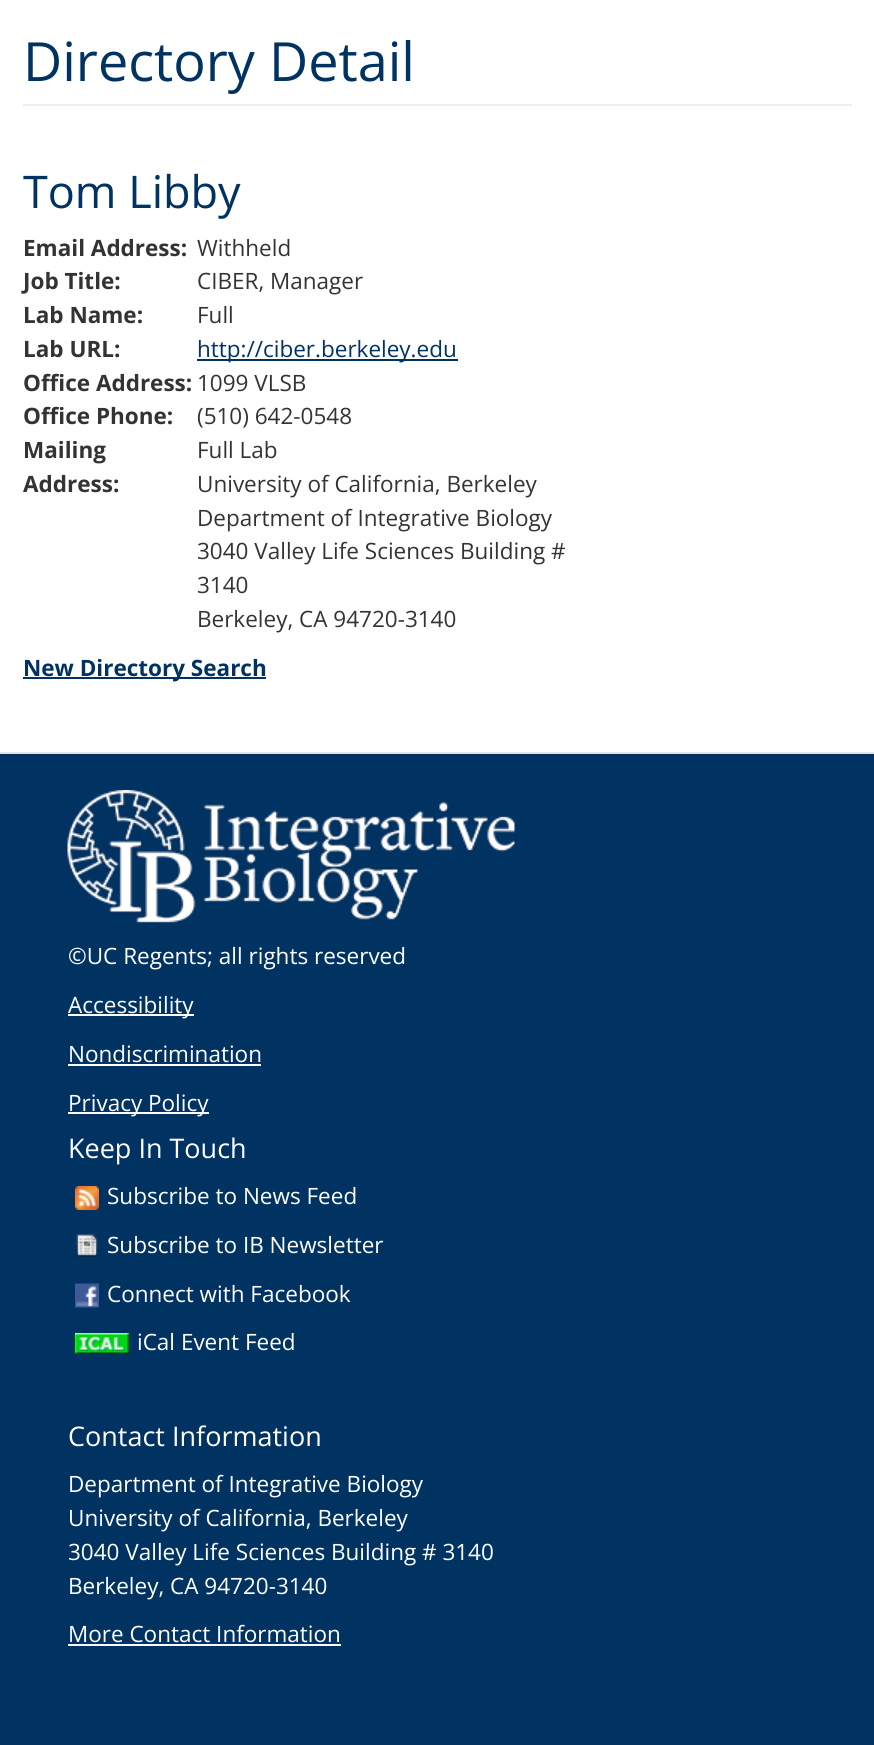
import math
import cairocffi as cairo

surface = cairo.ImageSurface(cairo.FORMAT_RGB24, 874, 1745)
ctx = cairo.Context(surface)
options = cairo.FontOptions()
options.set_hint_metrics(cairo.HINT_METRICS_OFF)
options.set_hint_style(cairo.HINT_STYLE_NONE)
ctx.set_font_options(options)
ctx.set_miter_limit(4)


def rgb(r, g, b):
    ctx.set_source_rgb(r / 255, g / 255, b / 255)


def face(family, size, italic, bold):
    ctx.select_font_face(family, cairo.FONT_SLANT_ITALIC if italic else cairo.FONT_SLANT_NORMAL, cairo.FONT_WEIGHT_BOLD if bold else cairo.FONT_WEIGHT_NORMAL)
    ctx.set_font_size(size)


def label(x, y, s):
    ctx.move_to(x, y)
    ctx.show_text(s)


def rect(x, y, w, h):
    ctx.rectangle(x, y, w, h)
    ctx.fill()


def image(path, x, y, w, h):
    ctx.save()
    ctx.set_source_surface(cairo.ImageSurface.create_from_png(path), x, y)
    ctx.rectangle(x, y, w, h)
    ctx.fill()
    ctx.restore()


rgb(255, 255, 255)
ctx.paint()
rgb(238, 238, 238)
rect(23, 104, 829, 2)
face('Open Sans', 54, 0, 0)
rgb(0, 50, 98)
label(23, 81, 'Directory Detail')
face('Open Sans', 45, 0, 0)
label(23, 208, 'Tom Libby')
face('Open Sans', 22.5, 0, 1)
rgb(51, 51, 51)
label(23, 256, 'Email Address:')
face('Open Sans', 22.5, 0, 0)
label(197, 256, 'Withheld')
face('Open Sans', 22.5, 0, 1)
label(23, 289, 'Job Title:')
face('Open Sans', 22.5, 0, 0)
label(197, 289, 'CIBER, Manager')
face('Open Sans', 22.5, 0, 1)
label(23, 323, 'Lab Name:')
face('Open Sans', 22.5, 0, 0)
label(197, 323, 'Full')
face('Open Sans', 22.5, 0, 1)
label(23, 357, 'Lab URL:')
rgb(0, 50, 98)
rect(197, 359, 261, 2)
face('Open Sans', 22.5, 0, 0)
label(197, 357, 'http://ciber.berkeley.edu')
face('Open Sans', 22.5, 0, 1)
rgb(51, 51, 51)
label(23, 391, 'Office Address:')
face('Open Sans', 22.5, 0, 0)
label(197, 391, '1099 VLSB')
face('Open Sans', 22.5, 0, 1)
label(23, 424, 'Office Phone:')
face('Open Sans', 22.5, 0, 0)
label(197, 424, '(510) 642-0548')
face('Open Sans', 22.5, 0, 1)
label(23, 458, 'Mailing')
label(23, 492, 'Address:')
face('Open Sans', 22.5, 0, 0)
label(197, 458, 'Full Lab')
label(197, 492, 'University of California, Berkeley')
label(197, 526, 'Department of Integrative Biology')
label(197, 559, '3040 Valley Life Sciences Building #')
label(197, 593, '3140')
label(197, 627, 'Berkeley, CA 94720-3140')
rgb(0, 50, 98)
rect(23, 677, 243, 2)
face('Open Sans', 22.5, 0, 1)
label(23, 676, 'New Directory Search')
rect(0, 754, 874, 991)
rgb(229, 229, 229)
rect(0, 752, 874, 2)
image('image0.png', 67, 790, 448, 133)
face('Open Sans', 22.5, 0, 0)
rgb(255, 255, 255)
label(68, 964, '©UC Regents; all rights reserved')
rect(68, 1014, 126, 2)
label(68, 1013, 'Accessibility')
label(68, 1062, 'Nondiscrimination')
rect(68, 1064, 193, 2)
rect(68, 1112, 141, 2)
label(68, 1111, 'Privacy Policy')
face('Open Sans', 27, 0, 0)
label(68, 1158, 'Keep In Touch')
image('image1.png', 75, 1186, 24, 24)
face('Open Sans', 22.5, 0, 0)
label(107, 1204, 'Subscribe to News Feed')
image('image2.png', 76, 1234, 22, 23)
label(107, 1253, 'Subscribe to IB Newsletter')
image('image3.png', 75, 1283, 24, 25)
label(107, 1302, 'Connect with Facebook')
image('image4.png', 75, 1333, 54, 21)
label(137, 1350, 'iCal Event Feed')
face('Open Sans', 27, 0, 0)
label(68, 1446, 'Contact Information')
face('Open Sans', 22.5, 0, 0)
label(68, 1492, 'Department of Integrative Biology')
label(68, 1526, 'University of California, Berkeley')
label(68, 1560, '3040 Valley Life Sciences Building # 3140')
label(68, 1594, 'Berkeley, CA 94720-3140')
label(68, 1642, 'More Contact Information')
rect(68, 1644, 273, 2)
surface.write_to_png('render.png')
